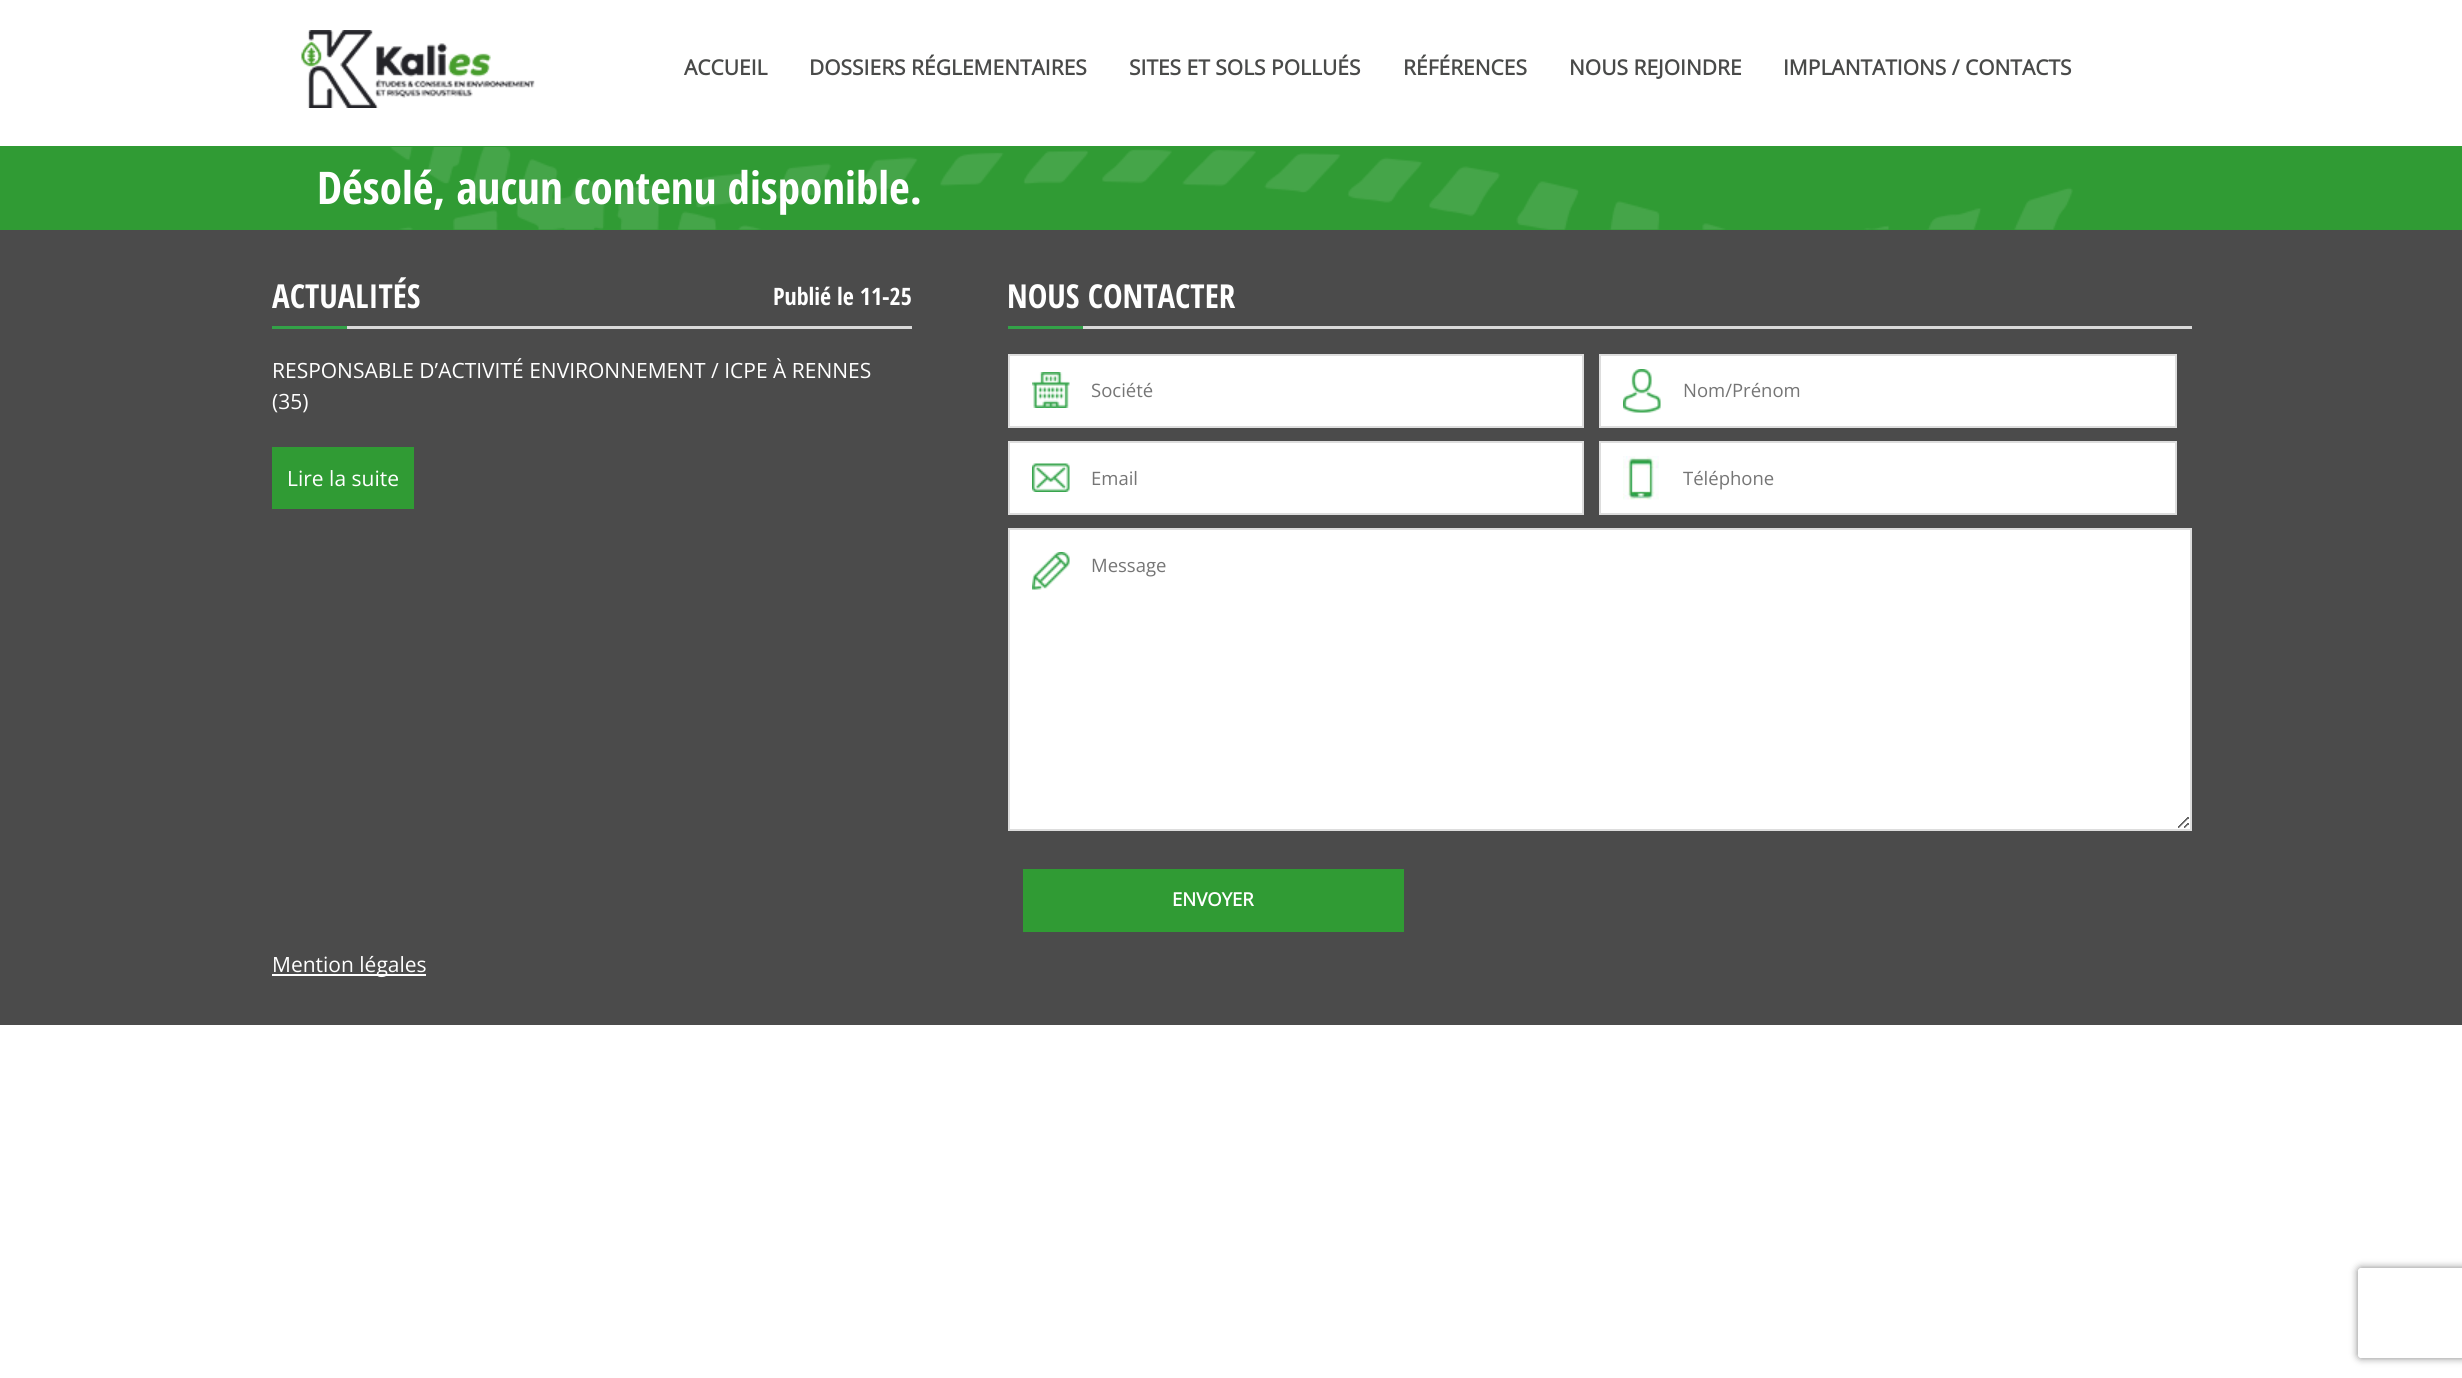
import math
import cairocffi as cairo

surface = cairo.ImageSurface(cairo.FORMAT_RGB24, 2462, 1378)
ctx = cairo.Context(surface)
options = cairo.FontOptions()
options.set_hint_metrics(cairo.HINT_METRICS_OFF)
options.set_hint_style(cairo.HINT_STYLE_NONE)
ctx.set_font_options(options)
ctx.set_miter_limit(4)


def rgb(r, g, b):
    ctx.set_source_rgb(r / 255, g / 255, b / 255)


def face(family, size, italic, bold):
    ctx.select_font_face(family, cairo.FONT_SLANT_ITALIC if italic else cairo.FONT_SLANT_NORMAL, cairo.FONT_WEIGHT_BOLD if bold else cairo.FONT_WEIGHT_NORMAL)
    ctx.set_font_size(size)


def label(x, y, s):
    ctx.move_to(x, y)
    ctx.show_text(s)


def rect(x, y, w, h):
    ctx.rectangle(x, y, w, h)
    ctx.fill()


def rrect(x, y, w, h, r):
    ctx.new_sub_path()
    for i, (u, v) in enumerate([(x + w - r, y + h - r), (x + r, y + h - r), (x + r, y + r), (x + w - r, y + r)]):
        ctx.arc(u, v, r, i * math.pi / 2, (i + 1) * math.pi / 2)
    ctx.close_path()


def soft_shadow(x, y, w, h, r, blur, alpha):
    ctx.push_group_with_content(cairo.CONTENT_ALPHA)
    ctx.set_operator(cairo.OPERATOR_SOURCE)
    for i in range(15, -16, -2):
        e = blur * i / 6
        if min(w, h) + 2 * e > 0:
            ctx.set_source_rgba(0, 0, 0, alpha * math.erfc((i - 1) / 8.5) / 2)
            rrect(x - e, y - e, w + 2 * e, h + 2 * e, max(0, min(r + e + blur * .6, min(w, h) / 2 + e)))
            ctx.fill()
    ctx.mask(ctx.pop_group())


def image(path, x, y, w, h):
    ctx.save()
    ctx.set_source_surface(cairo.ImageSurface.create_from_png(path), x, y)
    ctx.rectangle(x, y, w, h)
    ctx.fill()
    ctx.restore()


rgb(255, 255, 255)
ctx.paint()
image('image0.png', 301, 30, 234, 78)
face('Open Sans', 21, 0, 1)
rgb(73, 74, 73)
label(684, 75, 'ACCUEIL')
label(809, 75, 'DOSSIERS RÉGLEMENTAIRES')
label(1129, 75, 'SITES ET SOLS POLLUÉS')
label(1403, 75, 'RÉFÉRENCES')
label(1569, 75, 'NOUS REJOINDRE')
label(1783, 75, 'IMPLANTATIONS / CONTACTS')
rgb(48, 155, 52)
rect(0, 146, 2462, 84)
image('image1.png', 390, 147, 1683, 83)
face('Open Sans Condensed', 45, 0, 1)
rgb(255, 255, 255)
label(317, 204, 'Désolé, aucun contenu disponible.')
rgb(75, 75, 75)
rect(0, 230, 2462, 795)
rgb(51, 162, 72)
rect(272, 326, 75, 3)
rgb(217, 217, 217)
rect(347, 326, 565, 3)
face('Open Sans Condensed', 33, 0, 1)
rgb(255, 255, 255)
label(272, 308, 'ACTUALITÉS')
face('Open Sans Condensed', 24, 0, 1)
label(773, 305, 'Publié le 11-25')
face('Open Sans', 21, 0, 0)
label(272, 378, 'RESPONSABLE D’ACTIVITÉ ENVIRONNEMENT / ICPE À RENNES')
label(272, 409, '(35)')
rgb(48, 155, 52)
rect(272, 447, 142, 62)
rgb(255, 255, 255)
label(287, 486, 'Lire la suite')
rgb(51, 162, 72)
rect(1008, 326, 75, 3)
rgb(217, 217, 217)
rect(1083, 326, 1109, 3)
face('Open Sans Condensed', 33, 0, 1)
rgb(255, 255, 255)
label(1007, 308, 'NOUS CONTACTER')
rect(1010, 356, 572, 70)
image('image2.png', 1032, 372, 38, 36)
ctx.rectangle(1009, 355, 574, 72)
rgb(221, 221, 221)
ctx.stroke()
face('Open Sans', 18.5, 0, 0)
rgb(117, 117, 117)
label(1091, 397, 'Société')
rgb(255, 255, 255)
rect(1601, 356, 574, 70)
image('image3.png', 1623, 369, 38, 44)
ctx.rectangle(1600, 355, 576, 72)
rgb(221, 221, 221)
ctx.stroke()
rgb(117, 117, 117)
label(1683, 397, 'Nom/Prénom')
rgb(255, 255, 255)
rect(1010, 443, 572, 70)
image('image4.png', 1032, 463, 38, 29)
ctx.rectangle(1009, 442, 574, 72)
rgb(221, 221, 221)
ctx.stroke()
rgb(117, 117, 117)
label(1091, 485, 'Email')
rgb(255, 255, 255)
rect(1601, 443, 574, 70)
image('image5.png', 1623, 456, 36, 44)
ctx.rectangle(1600, 442, 576, 72)
rgb(221, 221, 221)
ctx.stroke()
rgb(117, 117, 117)
label(1683, 485, 'Téléphone')
rgb(255, 255, 255)
rect(1010, 530, 1180, 299)
image('image6.png', 1032, 552, 1157, 276)
ctx.rectangle(1009, 529, 1182, 301)
rgb(221, 221, 221)
ctx.stroke()
rgb(117, 117, 117)
label(1091, 572, 'Message')
rgb(48, 155, 52)
rect(1023, 869, 381, 63)
face('Open Sans', 18.5, 0, 1)
rgb(255, 255, 255)
label(1172, 906, 'ENVOYER')
rect(272, 974, 154, 2)
face('Open Sans', 21, 0, 0)
label(272, 972, 'Mention légales')
ctx.save()
ctx.set_fill_rule(cairo.FILL_RULE_EVEN_ODD)
ctx.new_path()
ctx.move_to(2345, 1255)
ctx.line_to(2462, 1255)
ctx.line_to(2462, 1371)
ctx.line_to(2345, 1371)
ctx.close_path()
ctx.move_to(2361, 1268)
ctx.line_to(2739, 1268)
ctx.curve_to(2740.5, 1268, 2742, 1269.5, 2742, 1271)
ctx.line_to(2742, 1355)
ctx.curve_to(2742, 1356.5, 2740.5, 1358, 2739, 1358)
ctx.line_to(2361, 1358)
ctx.curve_to(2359.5, 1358, 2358, 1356.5, 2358, 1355)
ctx.line_to(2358, 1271)
ctx.curve_to(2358, 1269.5, 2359.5, 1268, 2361, 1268)
ctx.close_path()
ctx.clip()
rgb(128, 128, 128)
soft_shadow(2358, 1268, 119, 90, 3, 4, 1)
ctx.restore()
surface.write_to_png('render.png')
